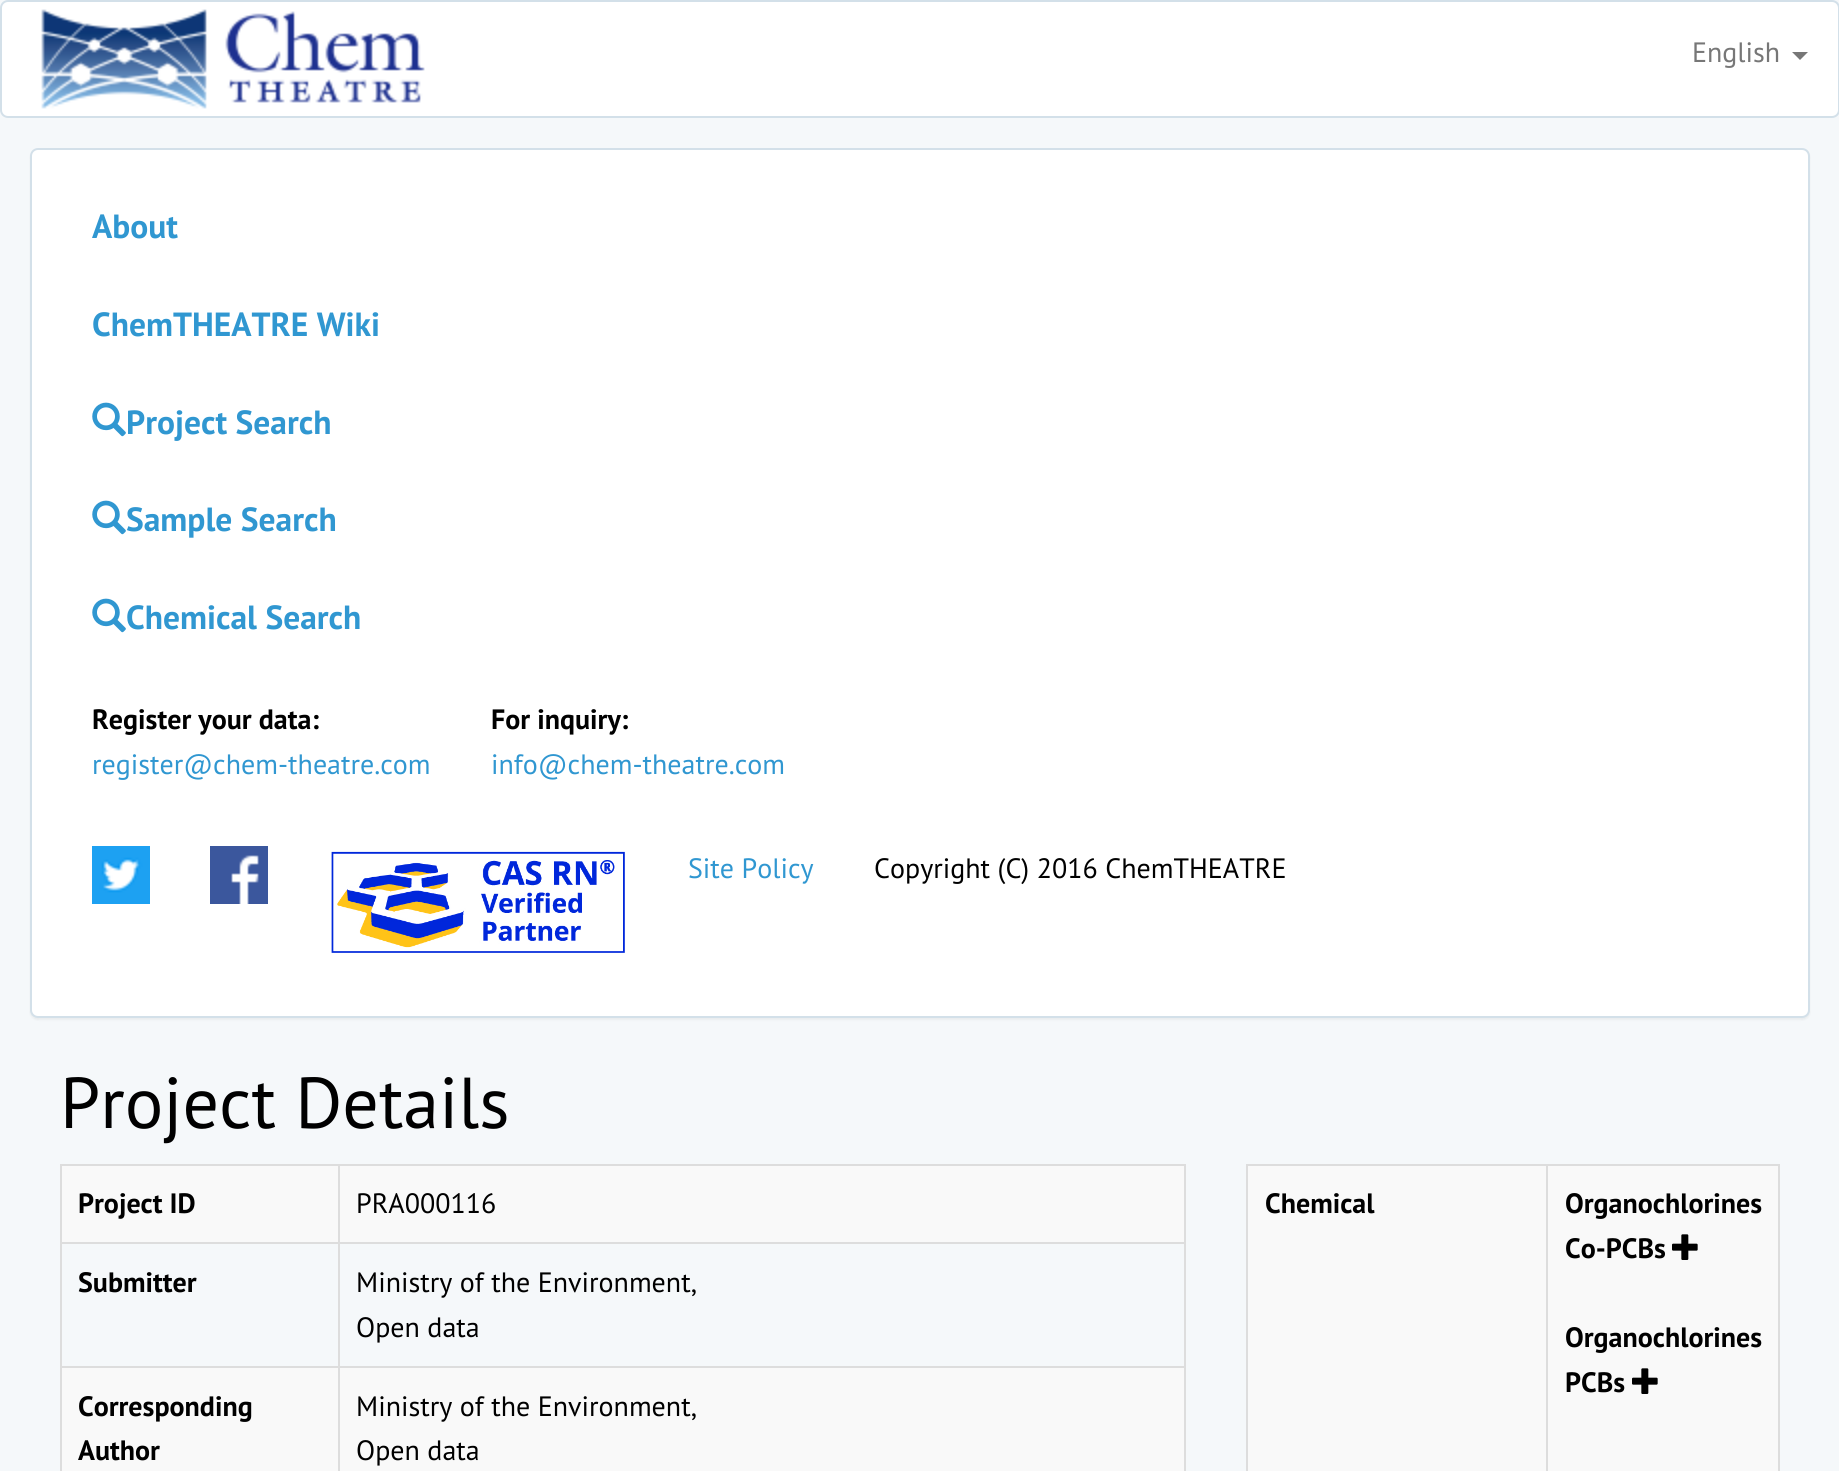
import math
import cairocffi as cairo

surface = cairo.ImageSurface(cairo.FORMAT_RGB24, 1839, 1471)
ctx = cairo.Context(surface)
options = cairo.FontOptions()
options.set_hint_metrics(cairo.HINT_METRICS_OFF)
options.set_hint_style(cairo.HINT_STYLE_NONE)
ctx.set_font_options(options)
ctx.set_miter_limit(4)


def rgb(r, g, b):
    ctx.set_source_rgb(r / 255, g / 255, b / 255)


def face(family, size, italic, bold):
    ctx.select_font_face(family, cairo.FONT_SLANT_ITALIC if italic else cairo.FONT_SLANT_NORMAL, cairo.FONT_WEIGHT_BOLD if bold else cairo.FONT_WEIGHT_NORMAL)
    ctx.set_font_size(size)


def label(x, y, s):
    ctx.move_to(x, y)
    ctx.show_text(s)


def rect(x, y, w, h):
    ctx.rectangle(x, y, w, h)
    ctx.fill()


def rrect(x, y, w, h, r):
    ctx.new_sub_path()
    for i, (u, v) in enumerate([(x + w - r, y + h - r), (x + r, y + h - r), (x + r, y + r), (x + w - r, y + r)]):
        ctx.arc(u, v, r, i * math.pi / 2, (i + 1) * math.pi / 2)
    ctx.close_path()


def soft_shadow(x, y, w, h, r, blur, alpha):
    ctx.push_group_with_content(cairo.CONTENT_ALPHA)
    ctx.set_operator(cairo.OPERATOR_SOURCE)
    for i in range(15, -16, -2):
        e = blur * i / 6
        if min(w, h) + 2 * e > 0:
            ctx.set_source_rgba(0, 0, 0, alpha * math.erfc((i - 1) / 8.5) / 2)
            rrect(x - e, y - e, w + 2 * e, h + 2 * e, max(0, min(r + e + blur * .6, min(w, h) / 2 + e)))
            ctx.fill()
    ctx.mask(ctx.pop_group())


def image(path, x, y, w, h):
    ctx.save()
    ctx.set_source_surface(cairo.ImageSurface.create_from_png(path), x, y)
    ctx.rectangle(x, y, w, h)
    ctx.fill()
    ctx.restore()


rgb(245, 248, 250)
ctx.paint()
rgb(255, 255, 255)
rrect(1, 1, 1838, 116, 7)
ctx.fill_preserve()
rgb(211, 224, 233)
ctx.stroke()
image('image0.png', 41, 9, 384, 100)
face('PT Sans', 28, 0, 0)
rgb(119, 119, 119)
label(1692, 62, 'English')
ctx.new_path()
ctx.move_to(1792, 52)
ctx.line_to(1808, 52)
ctx.line_to(1800, 60)
ctx.close_path()
ctx.fill()
rgb(0, 0, 0)
soft_shadow(30, 150, 1780, 870, 8, 1, 0.05)
rgb(255, 255, 255)
rrect(31, 149, 1778, 868, 7)
ctx.fill_preserve()
rgb(211, 224, 233)
ctx.stroke()
face('PT Sans', 33.5, 0, 1)
rgb(48, 151, 209)
label(92, 238, 'About')
label(92, 336, 'ChemTHEATRE Wiki')
image('image1.png', 92, 402, 34, 35)
label(126, 434, 'Project Search')
image('image1.png', 92, 500, 34, 35)
label(126, 531, 'Sample Search')
image('image1.png', 92, 598, 34, 35)
label(126, 629, 'Chemical Search')
face('PT Sans', 28, 0, 1)
rgb(0, 0, 0)
label(92, 729, 'Register your data:')
face('PT Sans', 28, 0, 0)
rgb(48, 151, 209)
label(92, 774, 'register@chem-theatre.com')
face('PT Sans', 28, 0, 1)
rgb(0, 0, 0)
label(491, 729, 'For inquiry:')
face('PT Sans', 28, 0, 0)
rgb(48, 151, 209)
label(491, 774, 'info@chem-theatre.com')
image('image2.png', 92, 846, 58, 58)
image('image3.png', 210, 846, 58, 58)
image('image4.png', 331, 851, 294, 102)
label(688, 878, 'Site Policy')
rgb(0, 0, 0)
label(874, 878, 'Copyright (C) 2016 ChemTHEATRE')
face('PT Sans', 72, 0, 0)
label(60, 1128, 'Project Details')
rgb(221, 221, 221)
rect(60, 1164, 1126, 2)
rect(1184, 1164, 2, 307)
rect(60, 1164, 2, 307)
rgb(249, 249, 249)
rect(62, 1166, 1122, 76)
face('PT Sans', 28, 0, 1)
rgb(0, 0, 0)
label(78, 1213, 'Project ID')
rgb(221, 221, 221)
rect(338, 1242, 848, 2)
rect(338, 1366, 848, 2)
rgb(249, 249, 249)
rect(62, 1368, 1122, 103)
rgb(221, 221, 221)
rect(338, 1366, 2, 105)
rect(60, 1366, 280, 2)
rect(338, 1242, 2, 126)
rect(60, 1242, 280, 2)
rect(338, 1164, 2, 80)
face('PT Sans', 28, 0, 0)
rgb(0, 0, 0)
label(356, 1213, 'PRA000116')
face('PT Sans', 28, 0, 1)
label(78, 1292, 'Submitter')
face('PT Sans', 28, 0, 0)
label(356, 1292, 'Ministry of the Environment,')
label(356, 1337, 'Open data')
face('PT Sans', 28, 0, 1)
label(78, 1416, 'Corresponding')
label(78, 1460, 'Author')
face('PT Sans', 28, 0, 0)
label(356, 1416, 'Ministry of the Environment,')
label(356, 1460, 'Open data')
rgb(221, 221, 221)
rect(1246, 1164, 534, 2)
rect(1778, 1164, 2, 307)
rect(1246, 1164, 2, 307)
rgb(249, 249, 249)
rect(1248, 1166, 530, 305)
face('PT Sans', 28, 0, 1)
rgb(0, 0, 0)
label(1265, 1213, 'Chemical')
rgb(221, 221, 221)
rect(1546, 1164, 2, 307)
rgb(0, 0, 0)
label(1565, 1213, 'Organochlorines')
label(1565, 1258, 'Co-PCBs')
image('image5.png', 1672, 1234, 26, 26)
label(1565, 1347, 'Organochlorines')
label(1565, 1392, 'PCBs')
image('image5.png', 1632, 1368, 26, 26)
surface.write_to_png('render.png')
